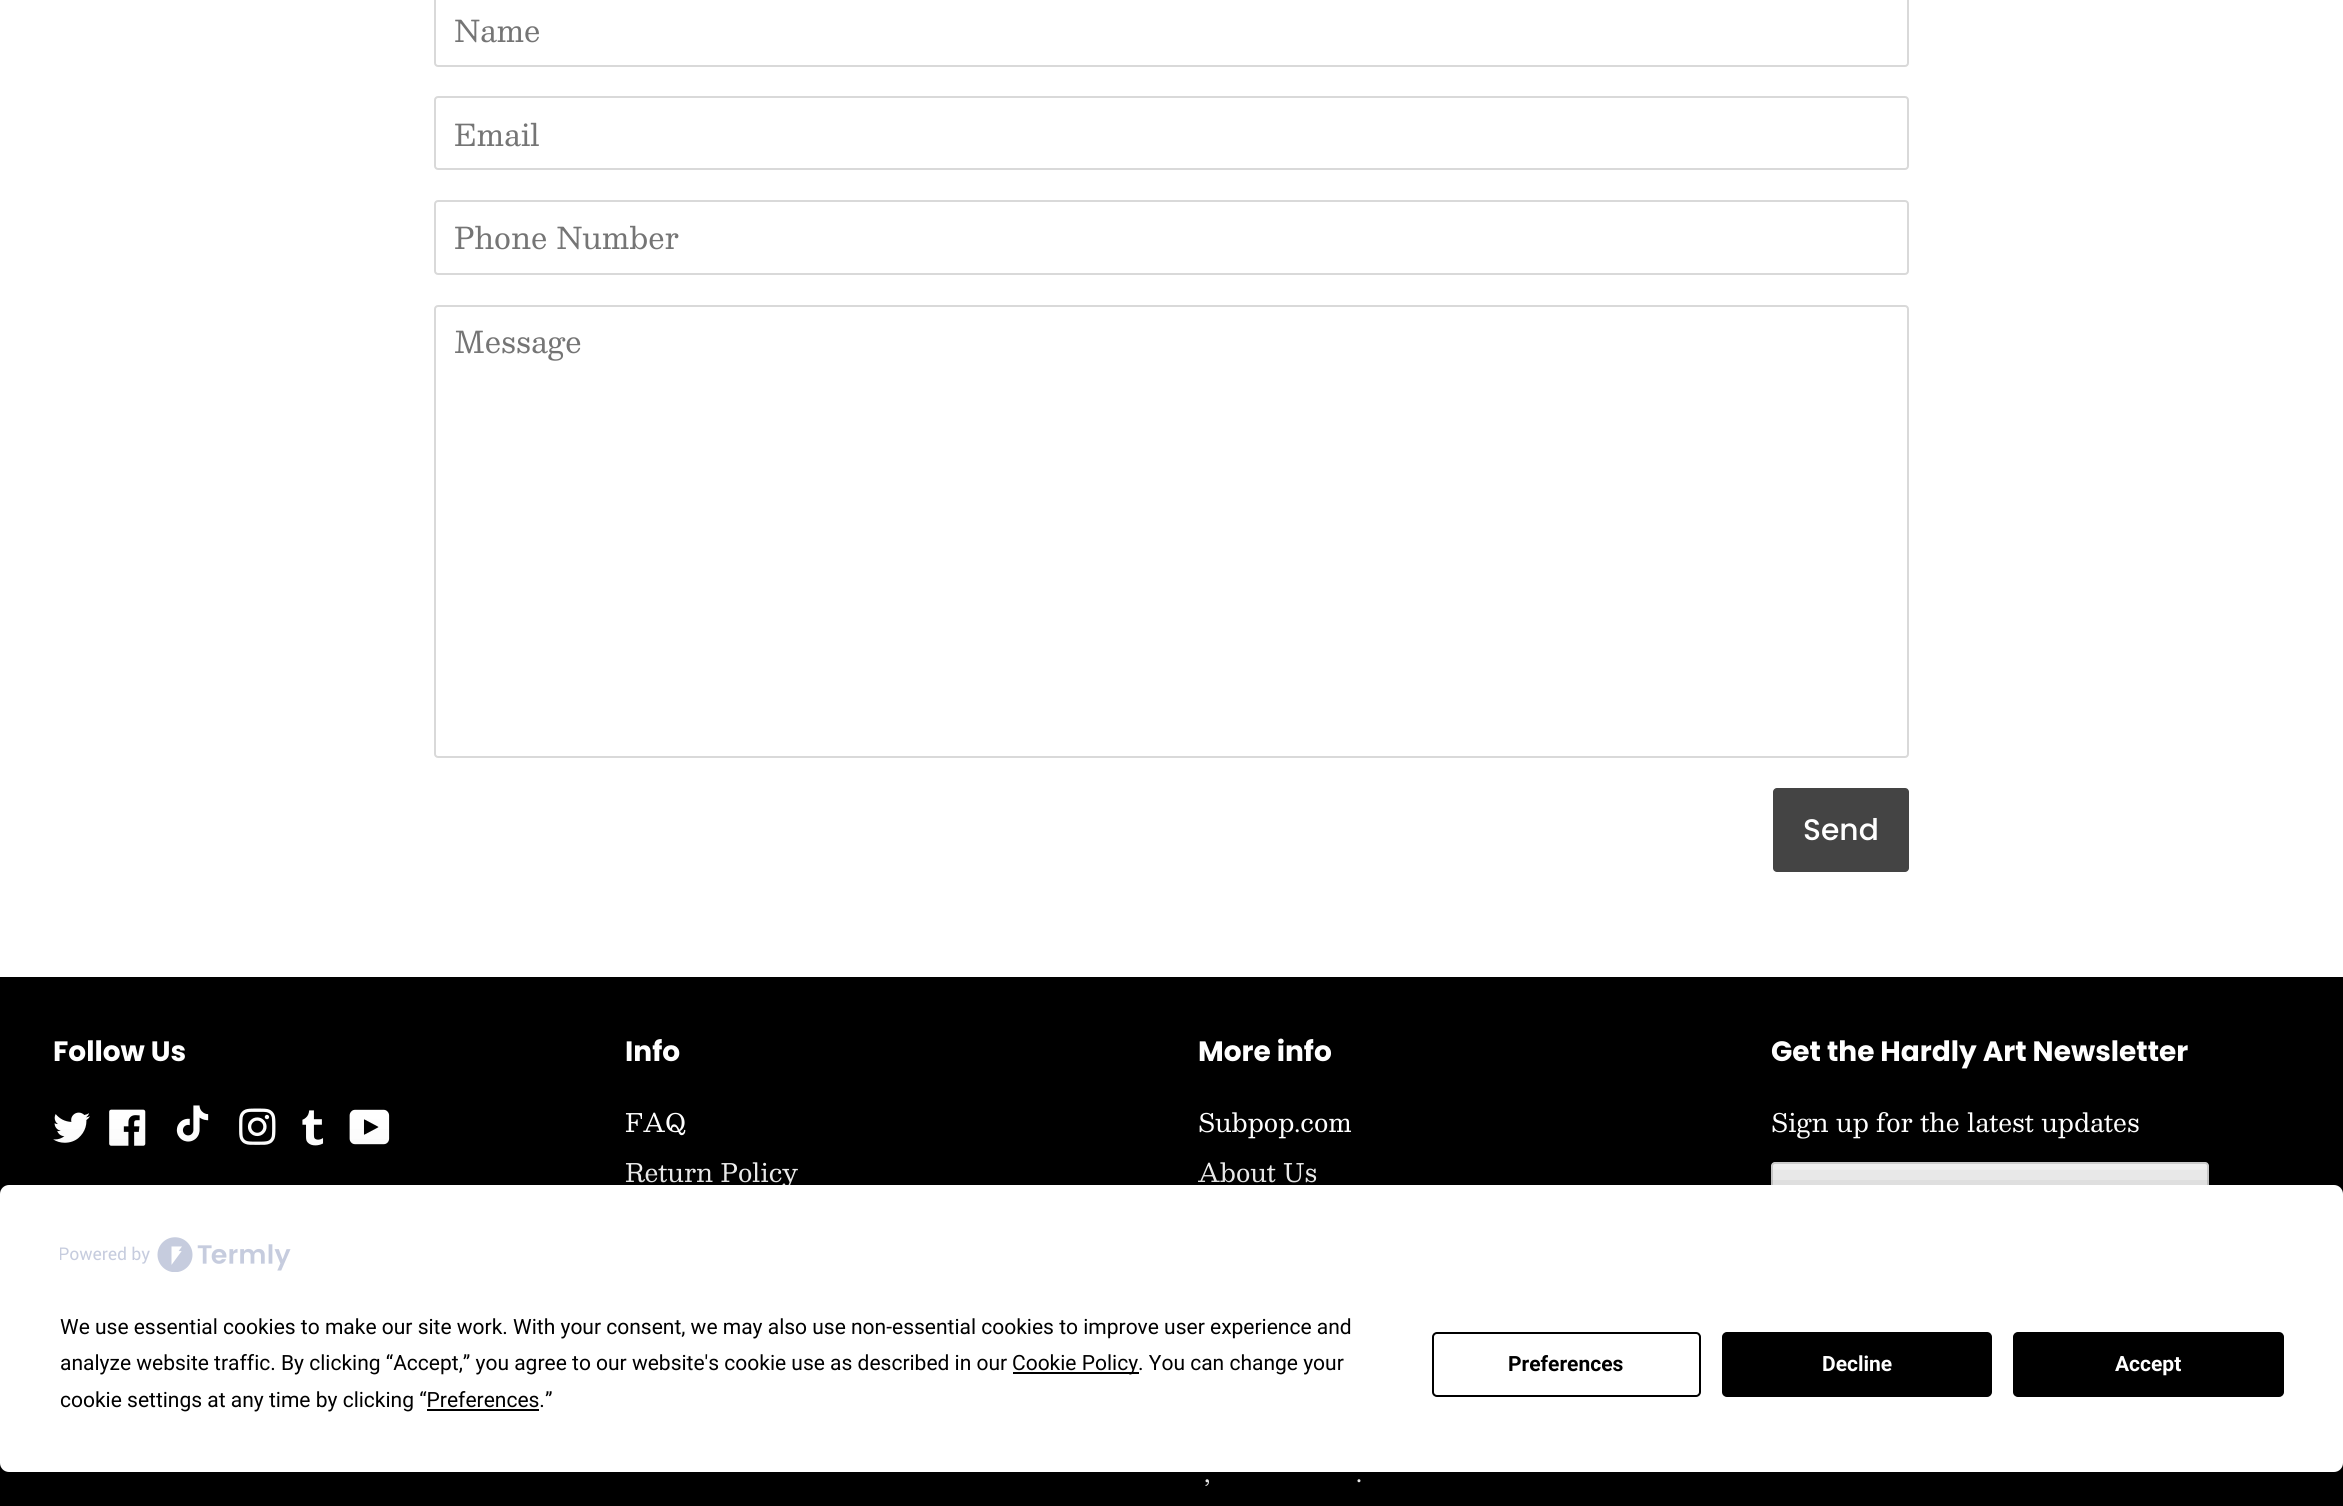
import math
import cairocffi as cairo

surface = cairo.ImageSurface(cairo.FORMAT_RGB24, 2343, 1506)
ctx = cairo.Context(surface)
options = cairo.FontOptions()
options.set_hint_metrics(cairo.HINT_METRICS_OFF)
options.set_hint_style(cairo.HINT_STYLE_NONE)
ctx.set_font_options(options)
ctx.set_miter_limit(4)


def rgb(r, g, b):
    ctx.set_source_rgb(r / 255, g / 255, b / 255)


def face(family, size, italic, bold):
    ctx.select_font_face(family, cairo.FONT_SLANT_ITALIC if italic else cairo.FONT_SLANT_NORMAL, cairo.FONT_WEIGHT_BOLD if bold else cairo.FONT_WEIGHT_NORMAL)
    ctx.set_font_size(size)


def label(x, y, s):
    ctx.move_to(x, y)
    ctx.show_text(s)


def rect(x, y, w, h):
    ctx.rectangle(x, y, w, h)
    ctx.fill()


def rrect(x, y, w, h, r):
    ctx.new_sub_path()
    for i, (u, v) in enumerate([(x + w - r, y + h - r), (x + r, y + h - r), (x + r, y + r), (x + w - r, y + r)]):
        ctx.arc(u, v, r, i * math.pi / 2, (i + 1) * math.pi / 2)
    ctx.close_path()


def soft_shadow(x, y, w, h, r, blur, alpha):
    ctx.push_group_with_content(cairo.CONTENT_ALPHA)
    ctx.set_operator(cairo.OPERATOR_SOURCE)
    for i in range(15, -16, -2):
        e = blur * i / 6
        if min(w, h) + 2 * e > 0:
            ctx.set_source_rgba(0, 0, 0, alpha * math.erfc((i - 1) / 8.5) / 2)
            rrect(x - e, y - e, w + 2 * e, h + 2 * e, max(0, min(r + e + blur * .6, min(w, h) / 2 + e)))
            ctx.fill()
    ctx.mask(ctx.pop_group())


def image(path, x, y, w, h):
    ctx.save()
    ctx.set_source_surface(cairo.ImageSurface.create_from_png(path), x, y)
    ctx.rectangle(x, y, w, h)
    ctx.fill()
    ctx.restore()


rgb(255, 255, 255)
ctx.paint()
rrect(435, -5, 1473, 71, 3)
rgb(217, 217, 217)
ctx.stroke()
face('Besley', 29.75, 0, 0)
rgb(117, 117, 117)
label(454, 42, 'Name')
rrect(435, 97, 1473, 72, 3)
rgb(217, 217, 217)
ctx.stroke()
rgb(117, 117, 117)
label(454, 146, 'Email')
rrect(435, 201, 1473, 73, 3)
rgb(217, 217, 217)
ctx.stroke()
rgb(117, 117, 117)
label(454, 249, 'Phone Number')
rrect(435, 306, 1473, 451, 3)
rgb(217, 217, 217)
ctx.stroke()
rgb(117, 117, 117)
label(454, 353, 'Message')
rgb(68, 68, 68)
rrect(1773, 788, 136, 84, 4)
ctx.fill()
face('Poppins Medium', 29.75, 0, 0)
rgb(255, 255, 255)
label(1803, 840, 'Send')
rgb(0, 0, 0)
rect(0, 977, 2343, 529)
face('Poppins', 28, 0, 1)
rgb(255, 255, 255)
label(53, 1061, 'Follow Us')
image('image0.png', 53, 1112, 37, 31)
image('image1.png', 109, 1109, 37, 37)
image('image2.png', 176, 1105, 33, 37)
image('image3.png', 239, 1108, 37, 37)
image('image4.png', 302, 1110, 22, 36)
image('image5.png', 349, 1109, 41, 36)
label(625, 1061, 'Info')
face('Besley', 25.25, 0, 0)
label(625, 1132, 'FAQ')
label(625, 1182, 'Return Policy')
face('Poppins', 28, 0, 1)
label(1198, 1061, 'More info')
face('Besley', 25.25, 0, 0)
label(1198, 1132, 'Subpop.com')
label(1198, 1182, 'About Us')
face('Poppins', 28, 0, 1)
label(1771, 1061, 'Get the Hardly Art Newsletter')
face('Besley', 25.25, 0, 0)
label(1771, 1132, 'Sign up for the latest updates')
rrect(1771, 1162, 438, 67, 4)
ctx.fill()
rrect(1772, 1163, 436, 65, 3)
ctx.set_source_rgba(0, 0, 0, 0.15)
ctx.stroke()
rgb(255, 255, 255)
label(1204, 1482, ',')
label(1356, 1482, '.')
rgb(0, 0, 0)
soft_shadow(0, 1185, 2343, 287, 9, 30.5, 0.25)
rgb(255, 255, 255)
rrect(0, 1185, 2343, 287, 9)
ctx.fill()
image('image6.png', 60, 1237, 231, 35)
face('Roboto', 21, 0, 0)
rgb(0, 0, 0)
label(60, 1334, 'We use essential cookies to make our site work. With your consent, we may also use non-essential cookies to improve user experience and')
label(60, 1370, 'analyze website traffic. By clicking “Accept,” you agree to our website\'s cookie use as described in our')
rect(1013, 1372, 126, 2)
label(1012, 1370, 'Cookie Policy. You can change your')
label(60, 1407, 'cookie settings at any time by clicking “Preferences.”')
rect(427, 1409, 112, 2)
rrect(1433, 1333, 267, 63, 4)
ctx.stroke()
face('Roboto', 21, 0, 1)
label(1508, 1371, 'Preferences')
rrect(1723, 1333, 268, 63, 4)
ctx.fill_preserve()
ctx.stroke()
rgb(255, 255, 255)
label(1822, 1371, 'Decline')
rgb(0, 0, 0)
rrect(2014, 1333, 269, 63, 4)
ctx.fill_preserve()
ctx.stroke()
rgb(255, 255, 255)
label(2115, 1371, 'Accept')
surface.write_to_png('render.png')
